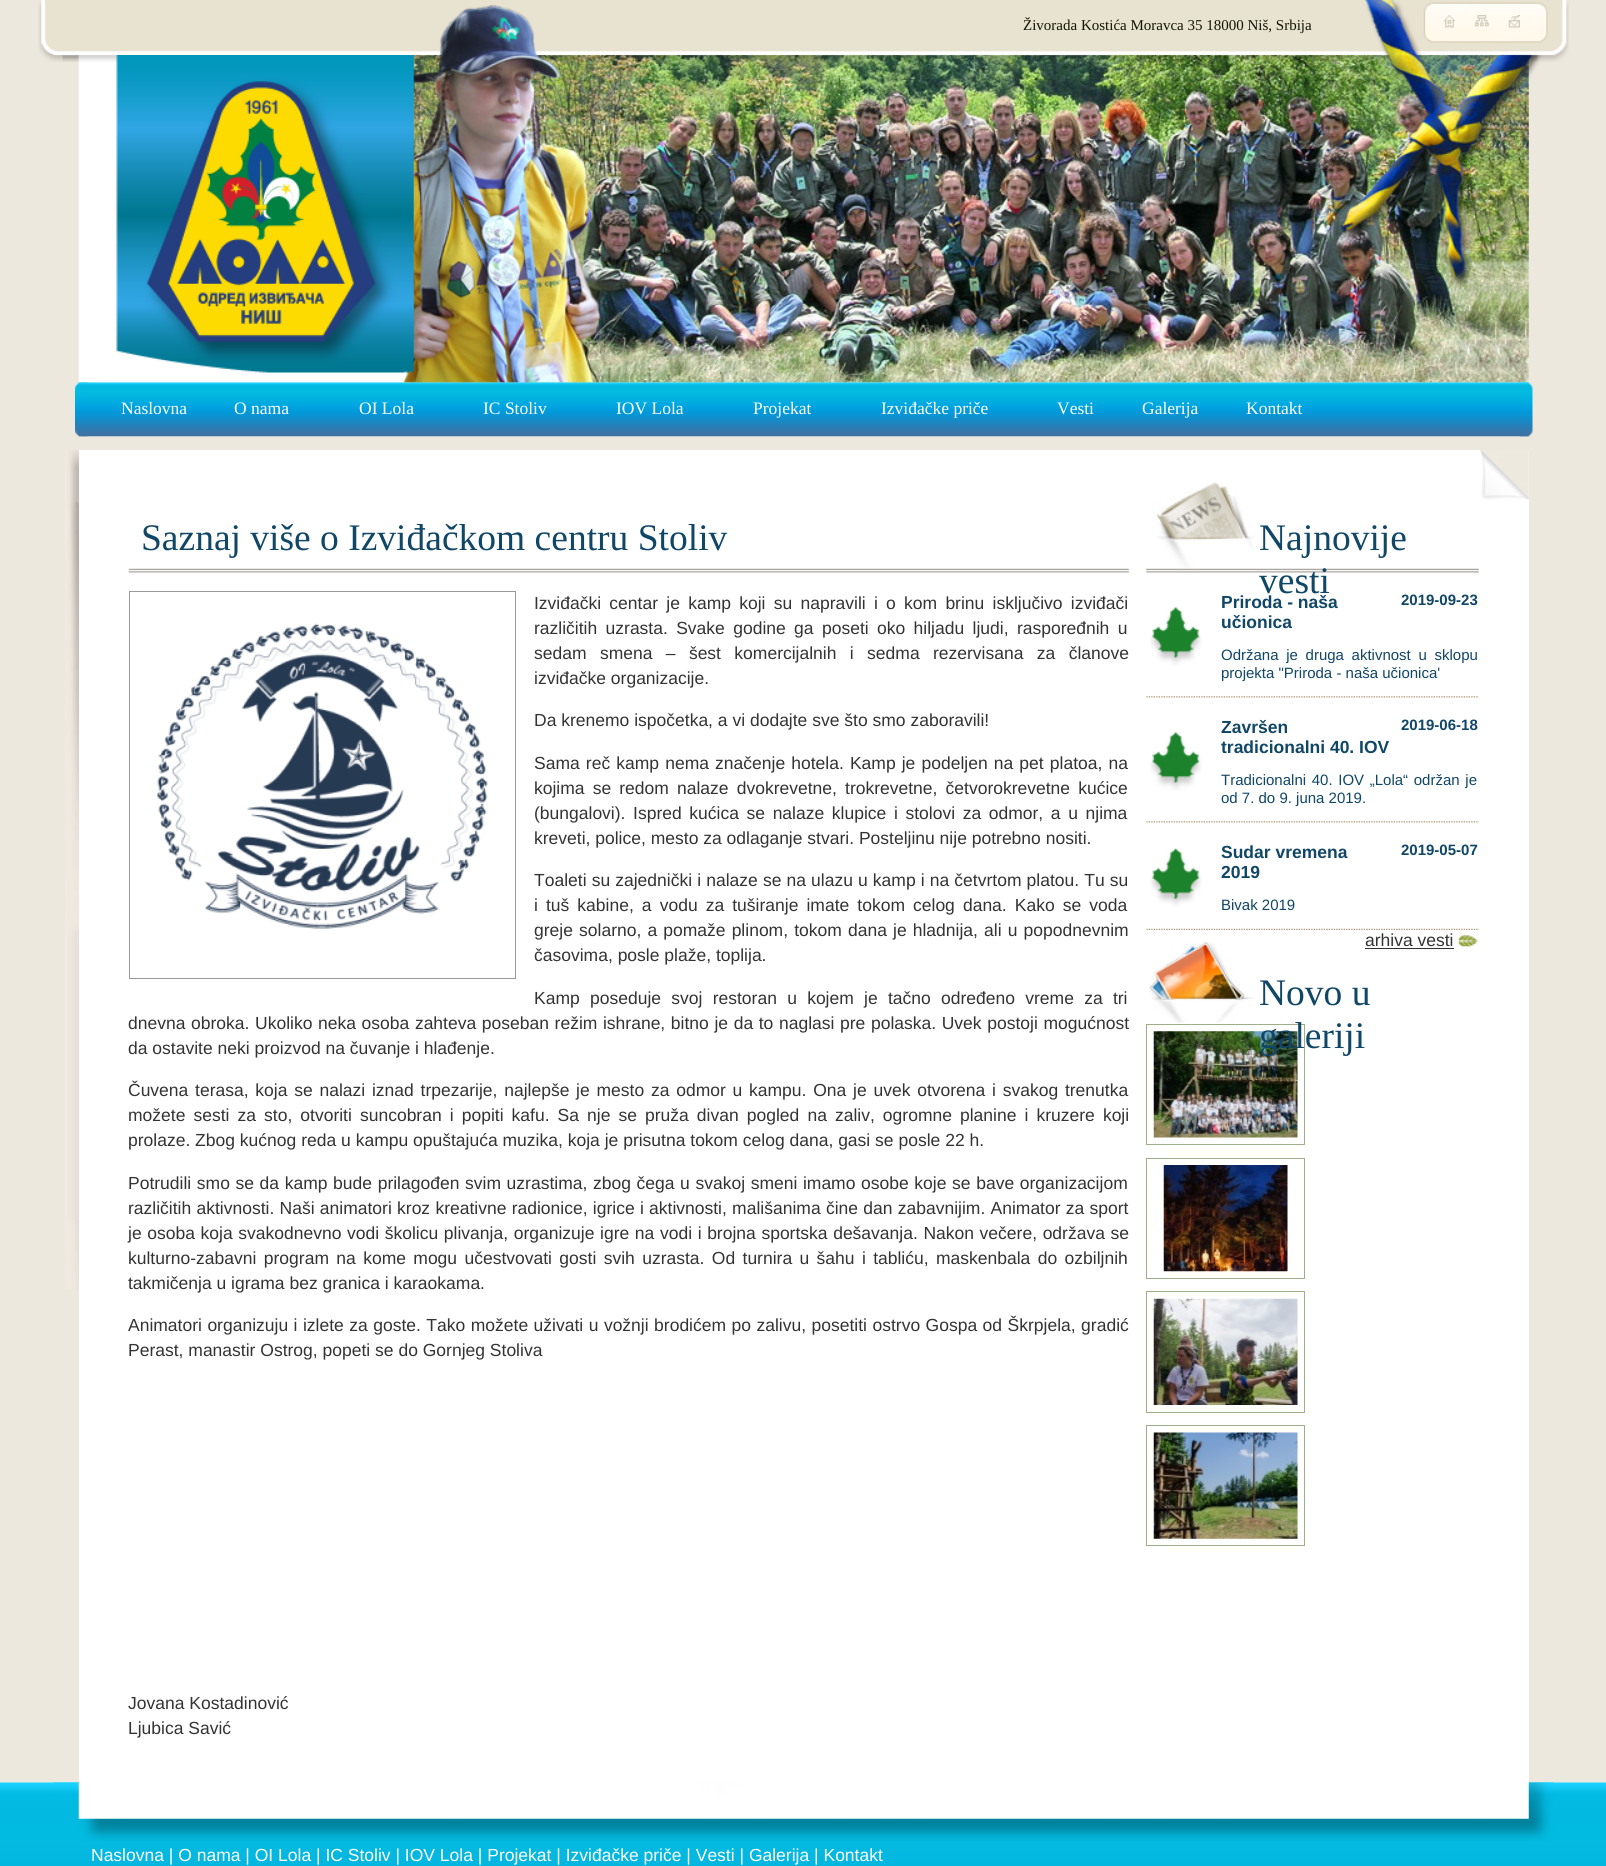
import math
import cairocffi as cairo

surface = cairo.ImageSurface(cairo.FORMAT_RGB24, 1606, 1866)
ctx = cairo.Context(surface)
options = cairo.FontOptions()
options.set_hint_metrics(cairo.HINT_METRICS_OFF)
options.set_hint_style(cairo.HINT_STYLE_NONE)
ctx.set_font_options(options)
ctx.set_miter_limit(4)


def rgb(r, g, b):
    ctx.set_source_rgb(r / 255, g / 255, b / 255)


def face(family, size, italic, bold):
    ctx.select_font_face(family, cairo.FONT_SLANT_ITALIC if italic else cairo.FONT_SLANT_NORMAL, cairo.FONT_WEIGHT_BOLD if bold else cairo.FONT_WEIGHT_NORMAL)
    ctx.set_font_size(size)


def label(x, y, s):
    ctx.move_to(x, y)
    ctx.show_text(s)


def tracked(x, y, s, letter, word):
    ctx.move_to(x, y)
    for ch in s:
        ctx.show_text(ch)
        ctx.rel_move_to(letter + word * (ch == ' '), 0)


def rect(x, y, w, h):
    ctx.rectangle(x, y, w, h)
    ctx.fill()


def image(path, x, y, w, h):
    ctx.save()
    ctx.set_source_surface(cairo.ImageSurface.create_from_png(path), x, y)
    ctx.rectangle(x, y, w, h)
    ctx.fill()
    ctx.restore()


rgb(237, 232, 222)
ctx.paint()
image('image0.png', 38, 0, 41, 62)
image('image2.png', 1528, 0, 41, 62)
image('image9.png', 78, 55, 1451, 328)
image('image4.png', 62, 0, 1476, 62)
image('image1.png', 1341, 0, 202, 289)
image('image3.png', 402, 5, 199, 378)
face('Liberation Serif', 15, 0, 0)
rgb(18, 21, 4)
label(1023, 30, 'Živorada Kostića Moravca 35 18000 Niš, Srbija')
image('image5.png', 1423, 2, 125, 41)
image('image6.png', 1443, 15, 12, 13)
image('image7.png', 1475, 15, 14, 12)
image('image8.png', 1508, 15, 12, 13)
image('image10.png', 116, 55, 298, 318)
image('image12.png', 78, 382, 1451, 55)
image('image11.png', 75, 382, 13, 55)
face('Liberation Serif', 17.5, 0, 0)
rgb(255, 255, 255)
label(121, 414, 'Naslovna')
label(234, 414, 'O nama')
label(359, 414, 'OI Lola')
label(483, 414, 'IC Stoliv')
label(616, 414, 'IOV Lola')
label(753, 414, 'Projekat')
label(881, 414, 'Izviđačke priče')
label(1057, 414, 'Vesti')
label(1142, 414, 'Galerija')
label(1246, 414, 'Kontakt')
image('image13.png', 1520, 382, 13, 55)
image('image14.png', 65, 450, 14, 840)
image('image30.png', 0, 1782, 1606, 84)
rect(79, 450, 1450, 1333)
image('image15.png', 1480, 450, 49, 50)
face('Liberation Serif', 37.5, 0, 0)
rgb(16, 70, 102)
label(141, 550, 'Saznaj više o Izviđačkom centru Stoliv')
image('image16.png', 128, 568, 1001, 5)
ctx.rectangle(129.5, 591.5, 386, 387)
rgb(153, 153, 153)
ctx.set_line_width(1)
ctx.stroke()
image('image17.png', 157, 623, 331, 306)
face('Liberation Sans', 17.5, 0, 0)
rgb(51, 51, 51)
tracked(534, 609, 'Izviđački centar je kamp koji su napravili i o kom brinu isključivo izviđači', 0, 3.4)
tracked(534, 634, 'različitih uzrasta. Svake godine ga poseti oko hiljadu ljudi, raspoređnih u', 0, 3.5)
tracked(534, 659, 'sedam smena – šest komercijalnih i sedma rezervisana za članove', 0, 8.5)
label(534, 684, 'izviđačke organizacije.')
label(534, 726, 'Da krenemo ispočetka, a vi dodajte sve što smo zaboravili!')
tracked(534, 769, 'Sama reč kamp nema značenje hotela. Kamp je podeljen na pet platoa, na', 0, 1.25)
tracked(534, 794, 'kojima se redom nalaze dvokrevetne, trokrevetne, četvorokrevetne kućice', 0, 3.25)
tracked(534, 819, '(bungalovi). Ispred kućica se nalaze klupice i stolovi za odmor, a u njima', 0, 2.75)
label(534, 844, 'kreveti, police, mesto za odlaganje stvari. Posteljinu nije potrebno nositi.')
tracked(534, 886, 'Toaleti su zajednički i nalaze se na ulazu u kamp i na četvrtom platou. Tu su', 0, 0.25)
tracked(534, 911, 'i tuš kabine, a vodu za tuširanje imate tokom celog dana. Kako se voda', 0, 3.2)
tracked(534, 936, 'greje solarno, a pomaže plinom, tokom dana je hladnija, ali u popodnevnim', 0, 1.25)
label(534, 961, 'časovima, posle plaže, toplija.')
tracked(534, 1004, 'Kamp poseduje svoj restoran u kojem je tačno određeno vreme za tri', 0, 5.4)
tracked(128, 1029, 'dnevna obroka. Ukoliko neka osoba zahteva poseban režim ishrane, bitno je da to naglasi pre polaska. Uvek postoji mogućnost', 0, 0.75)
label(128, 1054, 'da ostavite neki proizvod na čuvanje i hlađenje.')
tracked(128, 1096, 'Čuvena terasa, koja se nalazi iznad trpezarije, najlepše je mesto za odmor u kampu. Ona je uvek otvorena i svakog trenutka', 0, 1.9)
tracked(128, 1121, 'možete sesti za sto, otvoriti suncobran i popiti kafu. Sa nje se pruža divan pogled na zaliv, ogromne planine i kruzere koji', 0, 3.2)
label(128, 1146, 'prolaze. Zbog kućnog reda u kampu opuštajuća muzika, koja je prisutna tokom celog dana, gasi se posle 22 h.')
tracked(128, 1189, 'Potrudili smo se da kamp bude prilagođen svim uzrastima, zbog čega u svakoj smeni imamo osobe koje se bave organizacijom', 0, 0.75)
tracked(128, 1214, 'različitih aktivnosti. Naši animatori kroz kreativne radionice, igrice i aktivnosti, mališanima čine dan zabavnijim. Animator za sport', 0, 0.4)
tracked(128, 1239, 'je osoba koja svakodnevno vodi školicu plivanja, organizuje igre na vodi i brojna sportska dešavanja. Nakon večere, održava se', 0, 0.75)
tracked(128, 1264, 'kulturno-zabavni program na kome mogu učestvovati gosti svih uzrasta. Od turnira u šahu i tabliću, maskenbala do ozbiljnih', 0, 2.5)
label(128, 1289, 'takmičenja u igrama bez granica i karaokama.')
tracked(128, 1331, 'Animatori organizuju i izlete za goste. Tako možete uživati u vožnji brodićem po zalivu, posetiti ostrvo Gospa od Škrpjela, gradić', 0, 0.6)
label(128, 1356, 'Perast, manastir Ostrog, popeti se do Gornjeg Stoliva')
label(128, 1709, 'Jovana Kostadinović')
label(128, 1734, 'Ljubica Savić')
image('image18.png', 1156, 482, 99, 87)
face('Liberation Serif', 37.5, 0, 0)
rgb(16, 70, 102)
label(1259, 550, 'Najnovije')
image('image19.png', 1146, 568, 333, 5)
label(1259, 593, 'vesti')
image('image20.png', 1150, 607, 52, 59)
face('Liberation Sans', 17.5, 0, 1)
label(1221, 608, 'Priroda - naša')
label(1221, 628, 'učionica')
face('Liberation Sans', 15, 0, 0)
tracked(1221, 660, 'Održana je druga aktivnost u sklopu', 0, 3.5)
label(1221, 678, 'projekta "Priroda - naša učionica\'')
face('Liberation Sans', 15, 0, 1)
label(1401, 605, '2019-09-23')
image('image21.png', 1146, 696, 333, 2)
image('image20.png', 1150, 732, 52, 59)
face('Liberation Sans', 17.5, 0, 1)
label(1221, 733, 'Završen')
label(1221, 753, 'tradicionalni 40. IOV')
face('Liberation Sans', 15, 0, 0)
tracked(1221, 785, 'Tradicionalni 40. IOV „Lola“ održan je', 0, 1.5)
label(1221, 803, 'od 7. do 9. juna 2019.')
face('Liberation Sans', 15, 0, 1)
label(1401, 730, '2019-06-18')
image('image21.png', 1146, 821, 333, 2)
image('image22.png', 1150, 848, 52, 59)
face('Liberation Sans', 17.5, 0, 1)
label(1221, 858, 'Sudar vremena')
label(1221, 878, '2019')
face('Liberation Sans', 15, 0, 0)
label(1221, 910, 'Bivak 2019')
face('Liberation Sans', 15, 0, 1)
label(1401, 855, '2019-05-07')
image('image23.png', 1146, 928, 333, 2)
image('image24.png', 1458, 934, 20, 13)
face('Liberation Sans', 17.5, 0, 0)
rgb(51, 51, 51)
label(1365, 946, 'arhiva vesti')
rect(1365, 948, 89, 1)
ctx.rectangle(1146.5, 1024.5, 158, 120)
rgb(158, 174, 136)
ctx.stroke()
image('image25.png', 1153, 1031, 145, 107)
ctx.rectangle(1146.5, 1158.5, 158, 120)
ctx.stroke()
image('image26.png', 1163, 1165, 125, 107)
ctx.rectangle(1146.5, 1291.5, 158, 121)
ctx.stroke()
image('image27.png', 1153, 1298, 145, 107)
ctx.rectangle(1146.5, 1425.5, 158, 120)
ctx.stroke()
image('image28.png', 1153, 1432, 145, 107)
image('image29.png', 1149, 942, 105, 81)
face('Liberation Serif', 37.5, 0, 0)
rgb(16, 70, 102)
label(1259, 1005, 'Novo u')
label(1259, 1048, 'galeriji')
image('image31.png', 53, 1782, 1501, 59)
face('Liberation Sans', 17.5, 0, 0)
rgb(255, 255, 255)
label(91, 1861, 'Naslovna | O nama | OI Lola | IC Stoliv | IOV Lola | Projekat | Izviđačke priče | Vesti | Galerija | Kontakt')
surface.write_to_png('render.png')
